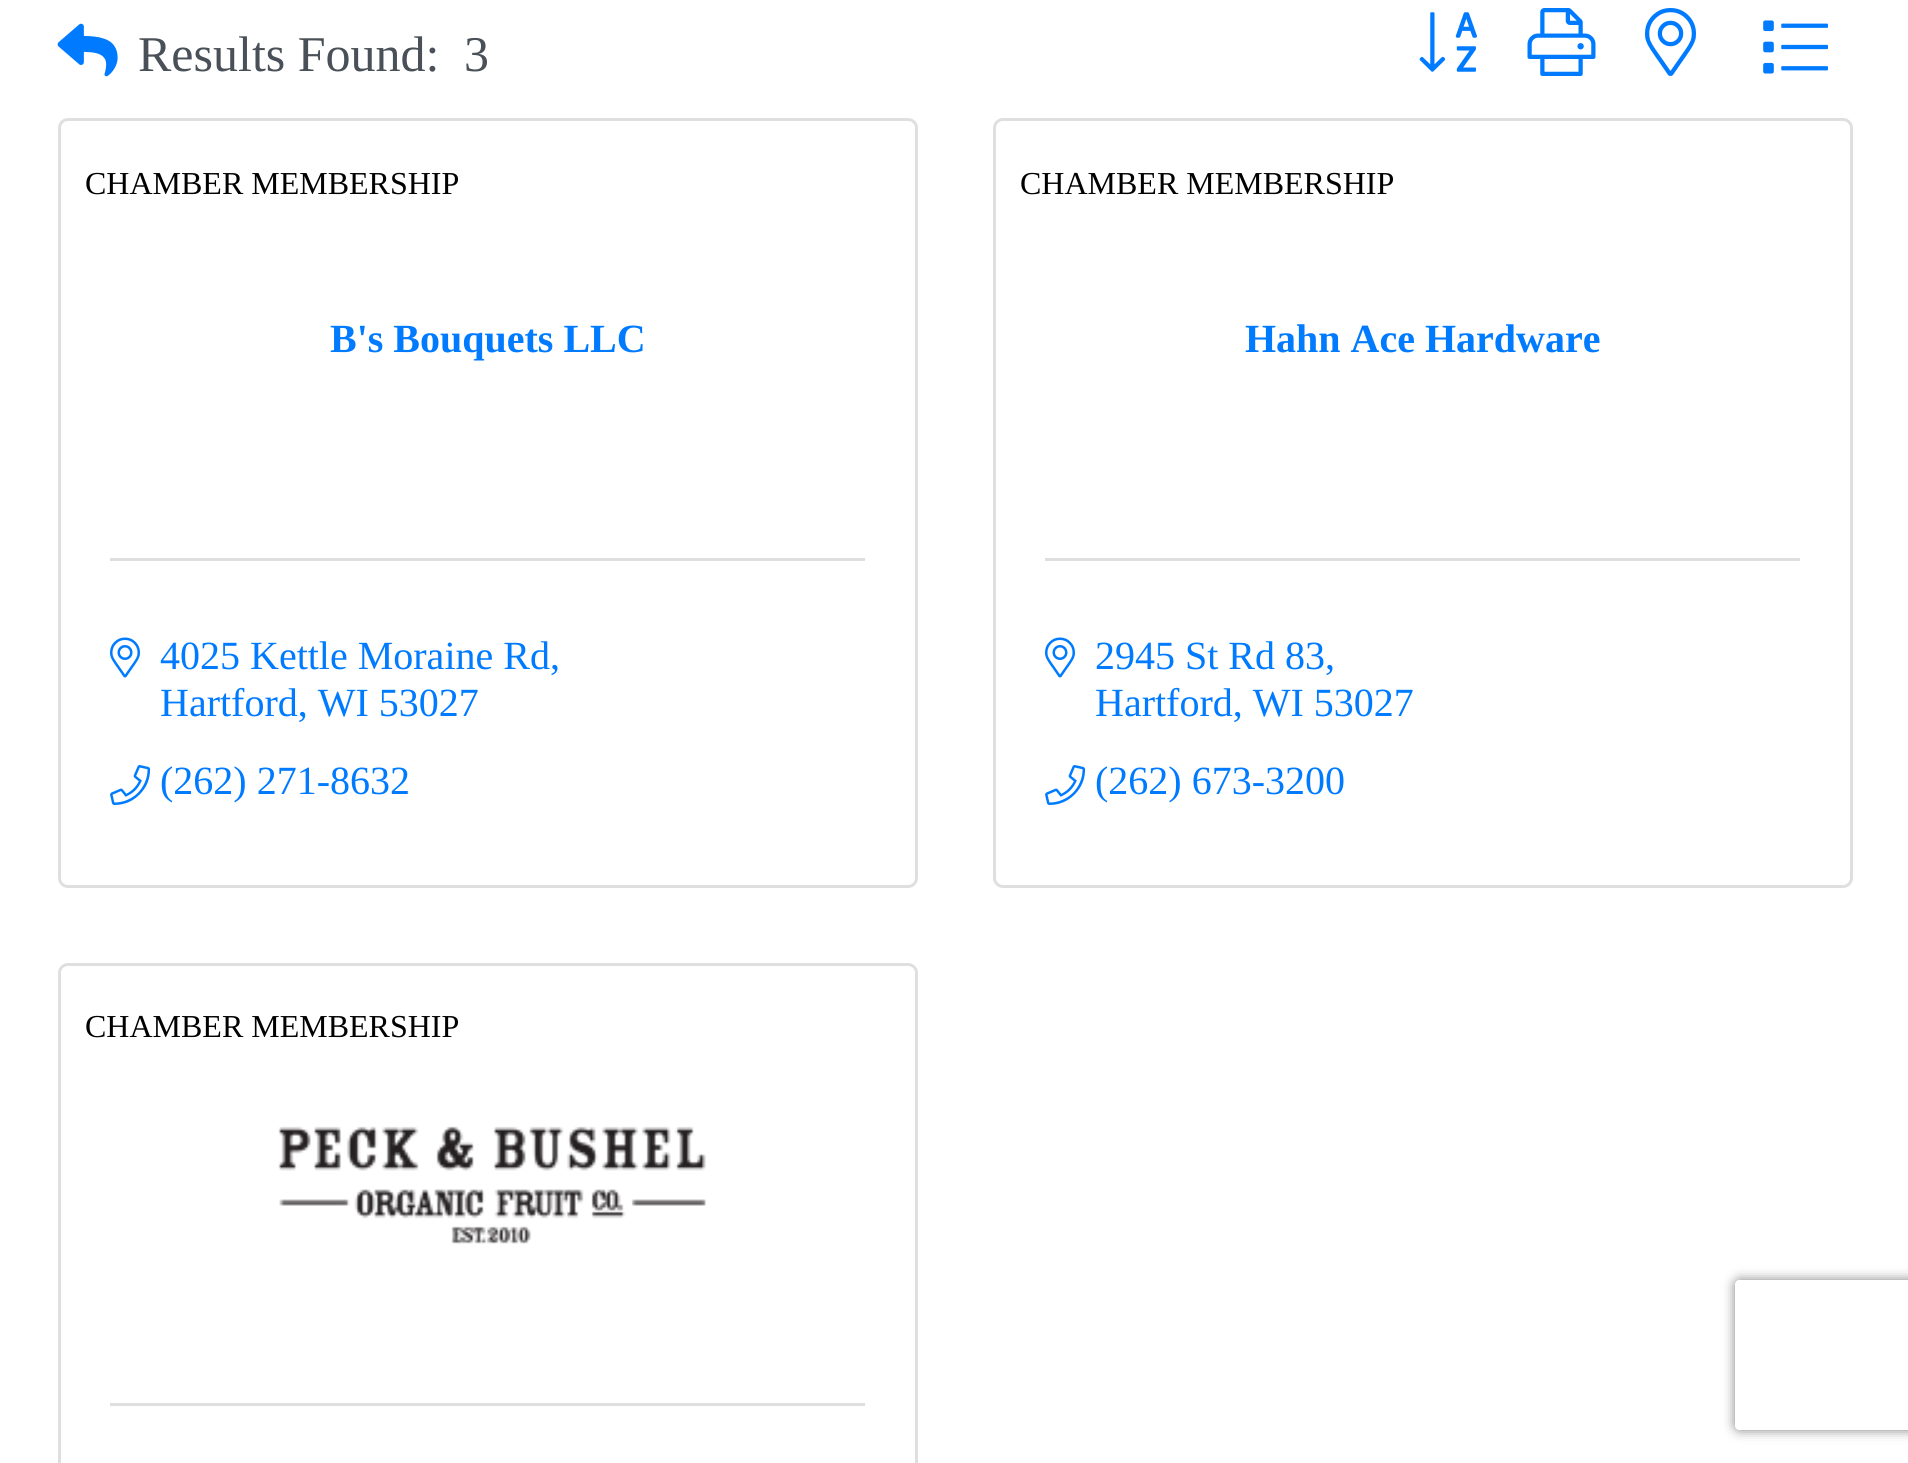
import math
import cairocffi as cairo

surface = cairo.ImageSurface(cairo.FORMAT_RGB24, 1908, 1463)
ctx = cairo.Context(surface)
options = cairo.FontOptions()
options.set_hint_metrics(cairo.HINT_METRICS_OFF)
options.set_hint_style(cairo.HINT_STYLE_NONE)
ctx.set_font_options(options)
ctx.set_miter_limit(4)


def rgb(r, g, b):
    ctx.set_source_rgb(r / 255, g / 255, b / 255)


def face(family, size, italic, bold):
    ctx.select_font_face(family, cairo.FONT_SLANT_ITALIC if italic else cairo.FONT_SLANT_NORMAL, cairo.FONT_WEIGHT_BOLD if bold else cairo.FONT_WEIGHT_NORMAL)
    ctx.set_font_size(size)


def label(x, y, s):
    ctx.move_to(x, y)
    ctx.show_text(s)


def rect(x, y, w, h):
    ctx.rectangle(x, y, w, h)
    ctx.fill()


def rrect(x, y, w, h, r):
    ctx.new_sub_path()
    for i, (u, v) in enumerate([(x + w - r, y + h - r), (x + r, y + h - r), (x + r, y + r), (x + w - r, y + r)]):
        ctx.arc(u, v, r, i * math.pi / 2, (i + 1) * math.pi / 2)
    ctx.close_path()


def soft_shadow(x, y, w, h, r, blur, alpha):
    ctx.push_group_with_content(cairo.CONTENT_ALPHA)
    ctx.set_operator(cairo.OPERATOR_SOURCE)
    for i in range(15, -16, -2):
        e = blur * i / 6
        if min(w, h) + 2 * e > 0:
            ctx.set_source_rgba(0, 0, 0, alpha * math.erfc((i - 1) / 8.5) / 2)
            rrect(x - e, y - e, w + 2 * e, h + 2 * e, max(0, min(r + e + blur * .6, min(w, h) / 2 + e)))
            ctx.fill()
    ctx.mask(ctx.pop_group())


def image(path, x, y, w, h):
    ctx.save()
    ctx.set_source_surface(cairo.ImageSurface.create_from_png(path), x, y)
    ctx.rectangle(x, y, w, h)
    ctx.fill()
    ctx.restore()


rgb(255, 255, 255)
ctx.paint()
image('image0.png', 57, 23, 61, 54)
face('Liberation Serif', 50, 0, 0)
rgb(73, 80, 87)
label(138, 71, 'Results Found:')
label(464, 71, '3')
image('image1.png', 1419, 12, 58, 60)
image('image2.png', 1527, 8, 69, 68)
image('image3.png', 1645, 8, 51, 68)
image('image4.png', 1763, 20, 65, 54)
rrect(59.5, 119.5, 857, 767, 8.5)
rgb(223, 223, 223)
ctx.set_line_width(3)
ctx.stroke()
face('Liberation Serif', 32, 0, 0)
rgb(0, 0, 0)
label(85, 194, 'CHAMBER MEMBERSHIP')
face('Liberation Serif', 40, 0, 1)
rgb(0, 123, 255)
label(330, 352, 'B\'s Bouquets LLC')
rgb(223, 223, 223)
rect(110, 558, 755, 3)
image('image5.png', 110, 637, 30, 41)
face('Liberation Serif', 40, 0, 0)
rgb(0, 123, 255)
label(160, 669, '4025 Kettle Moraine Rd,')
label(160, 716, 'Hartford, WI 53027')
image('image6.png', 110, 765, 41, 40)
label(160, 794, '(262) 271-8632')
rrect(994.5, 119.5, 857, 767, 8.5)
rgb(223, 223, 223)
ctx.stroke()
face('Liberation Serif', 32, 0, 0)
rgb(0, 0, 0)
label(1020, 194, 'CHAMBER MEMBERSHIP')
face('Liberation Serif', 40, 0, 1)
rgb(0, 123, 255)
label(1245, 352, 'Hahn Ace Hardware')
rgb(223, 223, 223)
rect(1045, 558, 755, 3)
image('image5.png', 1045, 637, 30, 41)
face('Liberation Serif', 40, 0, 0)
rgb(0, 123, 255)
label(1095, 669, '2945 St Rd 83,')
label(1095, 716, 'Hartford, WI 53027')
image('image6.png', 1045, 765, 41, 40)
label(1095, 794, '(262) 673-3200')
rrect(59.5, 964.5, 857, 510, 8.5)
rgb(223, 223, 223)
ctx.stroke()
face('Liberation Serif', 32, 0, 0)
rgb(0, 0, 0)
label(85, 1037, 'CHAMBER MEMBERSHIP')
image('image7.png', 278, 1126, 428, 118)
rgb(223, 223, 223)
rect(110, 1403, 755, 3)
ctx.save()
ctx.set_fill_rule(cairo.FILL_RULE_EVEN_ODD)
ctx.new_path()
ctx.move_to(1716, 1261)
ctx.line_to(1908, 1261)
ctx.line_to(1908, 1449)
ctx.line_to(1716, 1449)
ctx.close_path()
ctx.move_to(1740, 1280)
ctx.line_to(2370, 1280)
ctx.curve_to(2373, 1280, 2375, 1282, 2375, 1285)
ctx.line_to(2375, 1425)
ctx.curve_to(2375, 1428, 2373, 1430, 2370, 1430)
ctx.line_to(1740, 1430)
ctx.curve_to(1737, 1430, 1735, 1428, 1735, 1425)
ctx.line_to(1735, 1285)
ctx.curve_to(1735, 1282, 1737, 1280, 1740, 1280)
ctx.close_path()
ctx.clip()
rgb(128, 128, 128)
soft_shadow(1735, 1280, 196, 150, 5, 6, 1)
ctx.restore()
surface.write_to_png('render.png')
